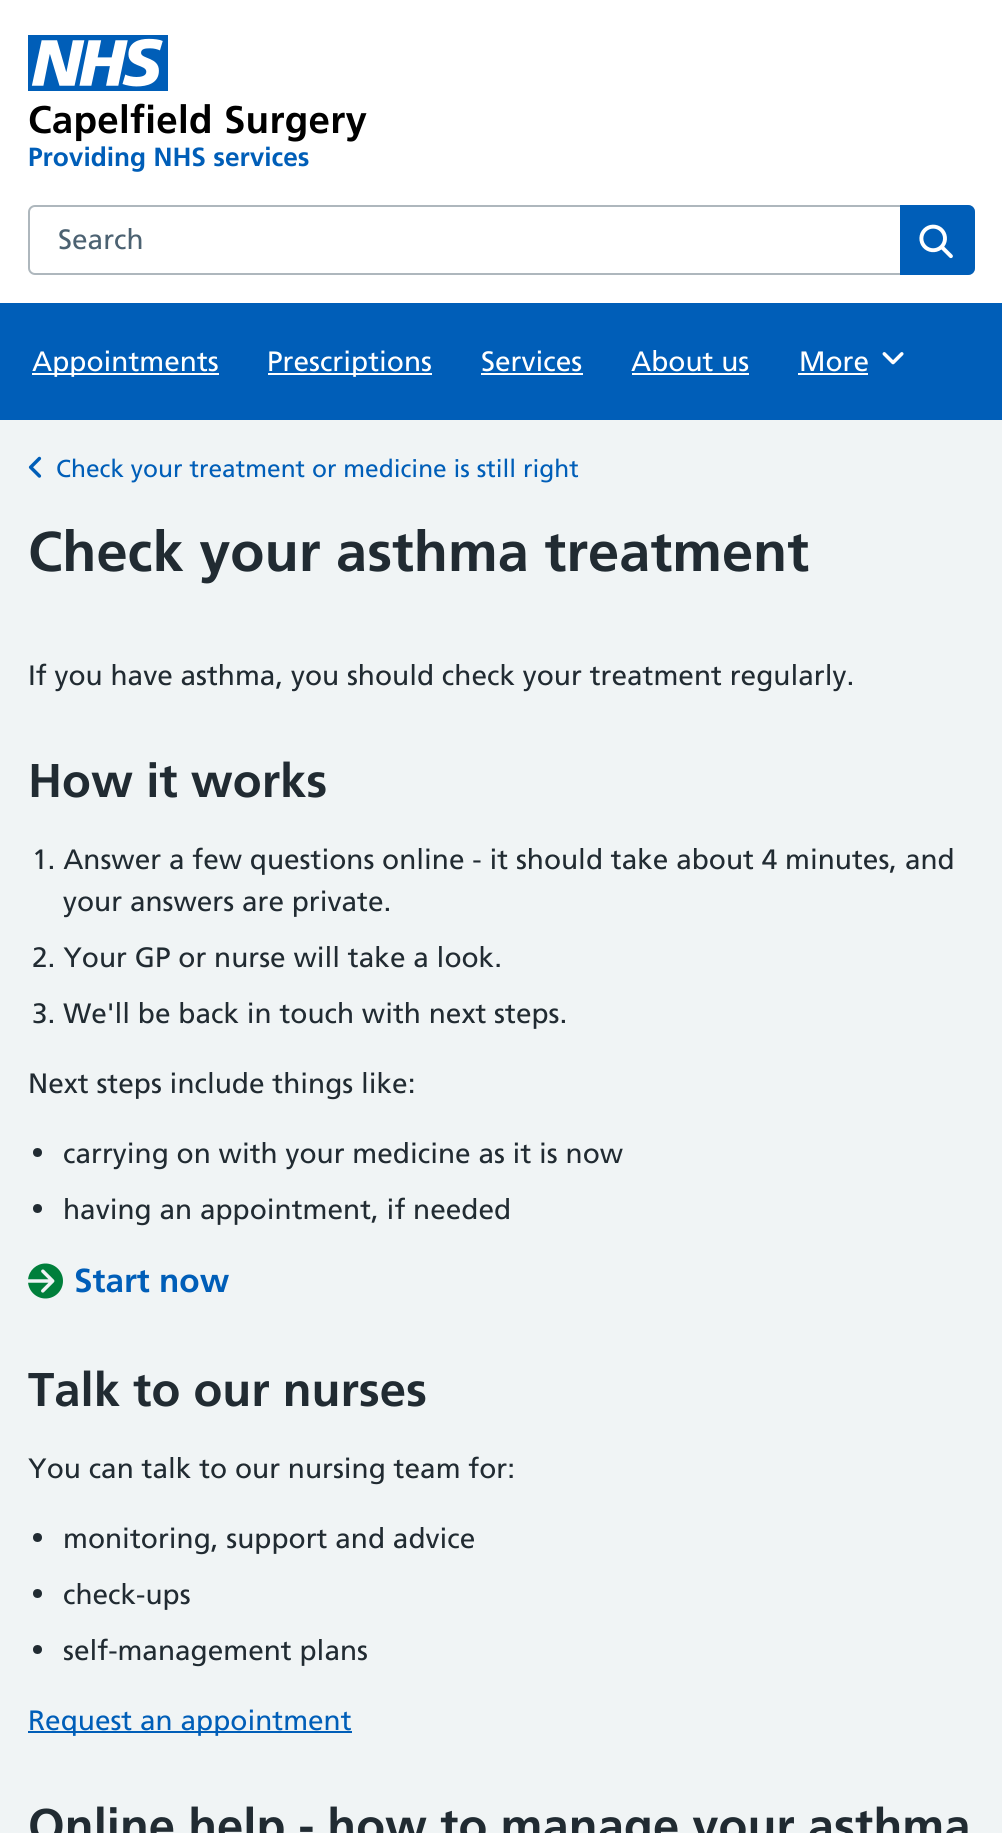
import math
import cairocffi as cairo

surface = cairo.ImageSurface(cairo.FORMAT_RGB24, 1002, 1833)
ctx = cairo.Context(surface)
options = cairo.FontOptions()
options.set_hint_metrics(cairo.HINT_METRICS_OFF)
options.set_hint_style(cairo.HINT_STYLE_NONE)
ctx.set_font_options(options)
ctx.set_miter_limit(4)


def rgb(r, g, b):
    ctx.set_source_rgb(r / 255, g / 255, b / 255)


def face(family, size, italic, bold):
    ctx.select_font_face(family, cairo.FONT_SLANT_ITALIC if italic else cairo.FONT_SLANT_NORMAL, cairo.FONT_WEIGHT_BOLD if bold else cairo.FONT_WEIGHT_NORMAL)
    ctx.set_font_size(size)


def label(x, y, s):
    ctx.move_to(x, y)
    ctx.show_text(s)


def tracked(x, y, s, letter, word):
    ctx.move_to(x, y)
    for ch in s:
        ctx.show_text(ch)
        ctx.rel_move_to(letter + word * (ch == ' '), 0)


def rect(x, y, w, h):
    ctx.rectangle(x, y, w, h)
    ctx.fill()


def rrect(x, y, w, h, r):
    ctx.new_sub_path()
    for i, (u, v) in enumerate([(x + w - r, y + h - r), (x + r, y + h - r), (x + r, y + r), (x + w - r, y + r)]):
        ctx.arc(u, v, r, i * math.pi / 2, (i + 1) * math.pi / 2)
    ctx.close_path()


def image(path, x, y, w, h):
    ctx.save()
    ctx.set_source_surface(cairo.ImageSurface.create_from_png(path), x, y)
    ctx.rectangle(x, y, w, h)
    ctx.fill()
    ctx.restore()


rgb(240, 244, 245)
ctx.paint()
rgb(255, 255, 255)
rect(0, 0, 1002, 303)
image('image0.png', 28, 35, 140, 56)
face('Frutiger', 38.5, 0, 1)
rgb(0, 0, 0)
tracked(28, 133, 'Capelfield Surgery', 0.3, 0)
face('Frutiger', 26.25, 0, 1)
rgb(0, 94, 184)
label(28, 166, 'Providing NHS services')
rrect(29, 206, 945, 68, 6)
rgb(174, 183, 189)
ctx.stroke()
face('Frutiger', 28, 0, 0)
rgb(76, 98, 114)
label(58, 249, 'Search')
rgb(0, 94, 184)
ctx.new_path()
ctx.move_to(900, 205)
ctx.line_to(968, 205)
ctx.curve_to(972, 205, 975, 208, 975, 212)
ctx.line_to(975, 268)
ctx.curve_to(975, 272, 972, 275, 968, 275)
ctx.line_to(900, 275)
ctx.close_path()
ctx.fill()
image('image1.png', 919, 224, 34, 35)
rect(0, 303, 1002, 117)
rgb(255, 255, 255)
rect(32, 373, 187, 2)
label(32, 371, 'Appointments')
rect(268, 373, 164, 2)
label(267, 371, 'Prescriptions')
label(481, 371, 'Services')
rect(481, 373, 102, 2)
label(631, 371, 'About us')
rect(632, 373, 117, 2)
label(799, 371, 'More')
rect(798, 373, 70, 2)
image('image2.png', 882, 352, 22, 13)
image('image3.png', 28, 456, 14, 22)
face('Frutiger', 24.5, 0, 0)
rgb(0, 94, 184)
label(56, 477, 'Check your treatment or medicine is still right')
face('Frutiger', 56, 0, 1)
rgb(33, 43, 50)
label(28, 571, 'Check your asthma treatment')
face('Frutiger', 28, 0, 0)
label(28, 685, 'If you have asthma, you should check your treatment regularly.')
face('Frutiger', 47.25, 0, 1)
label(28, 797, 'How it works')
face('Frutiger', 28, 0, 0)
label(32, 869, '1. Answer a few questions online - it should take about 4 minutes, and')
label(63, 911, 'your answers are private.')
label(32, 967, '2. Your GP or nurse will take a look.')
label(32, 1023, '3. We\'ll be back in touch with next steps.')
label(28, 1093, 'Next steps include things like:')
ctx.new_path()
ctx.arc(37.5, 1152.5, 4.5, 0, 2 * math.pi)
ctx.fill()
label(63, 1163, 'carrying on with your medicine as it is now')
ctx.new_path()
ctx.arc(37.5, 1208.5, 4.5, 0, 2 * math.pi)
ctx.fill()
label(63, 1219, 'having an appointment, if needed')
image('image4.png', 28, 1263, 35, 36)
face('Frutiger', 33.25, 0, 1)
rgb(0, 94, 184)
label(74, 1292, 'Start now')
face('Frutiger', 47.25, 0, 1)
rgb(33, 43, 50)
label(28, 1406, 'Talk to our nurses')
face('Frutiger', 28, 0, 0)
label(28, 1478, 'You can talk to our nursing team for:')
ctx.new_path()
ctx.arc(37.5, 1537.5, 4.5, 0, 2 * math.pi)
ctx.fill()
label(63, 1548, 'monitoring, support and advice')
ctx.new_path()
ctx.arc(37.5, 1593.5, 4.5, 0, 2 * math.pi)
ctx.fill()
label(63, 1604, 'check-ups')
ctx.new_path()
ctx.arc(37.5, 1649.5, 4.5, 0, 2 * math.pi)
ctx.fill()
label(63, 1660, 'self-management plans')
rgb(0, 94, 184)
rect(28, 1731, 324, 2)
label(28, 1730, 'Request an appointment')
face('Frutiger', 47.25, 0, 1)
rgb(33, 43, 50)
label(28, 1842, 'Online help - how to manage your asthma')
surface.write_to_png('render.png')
